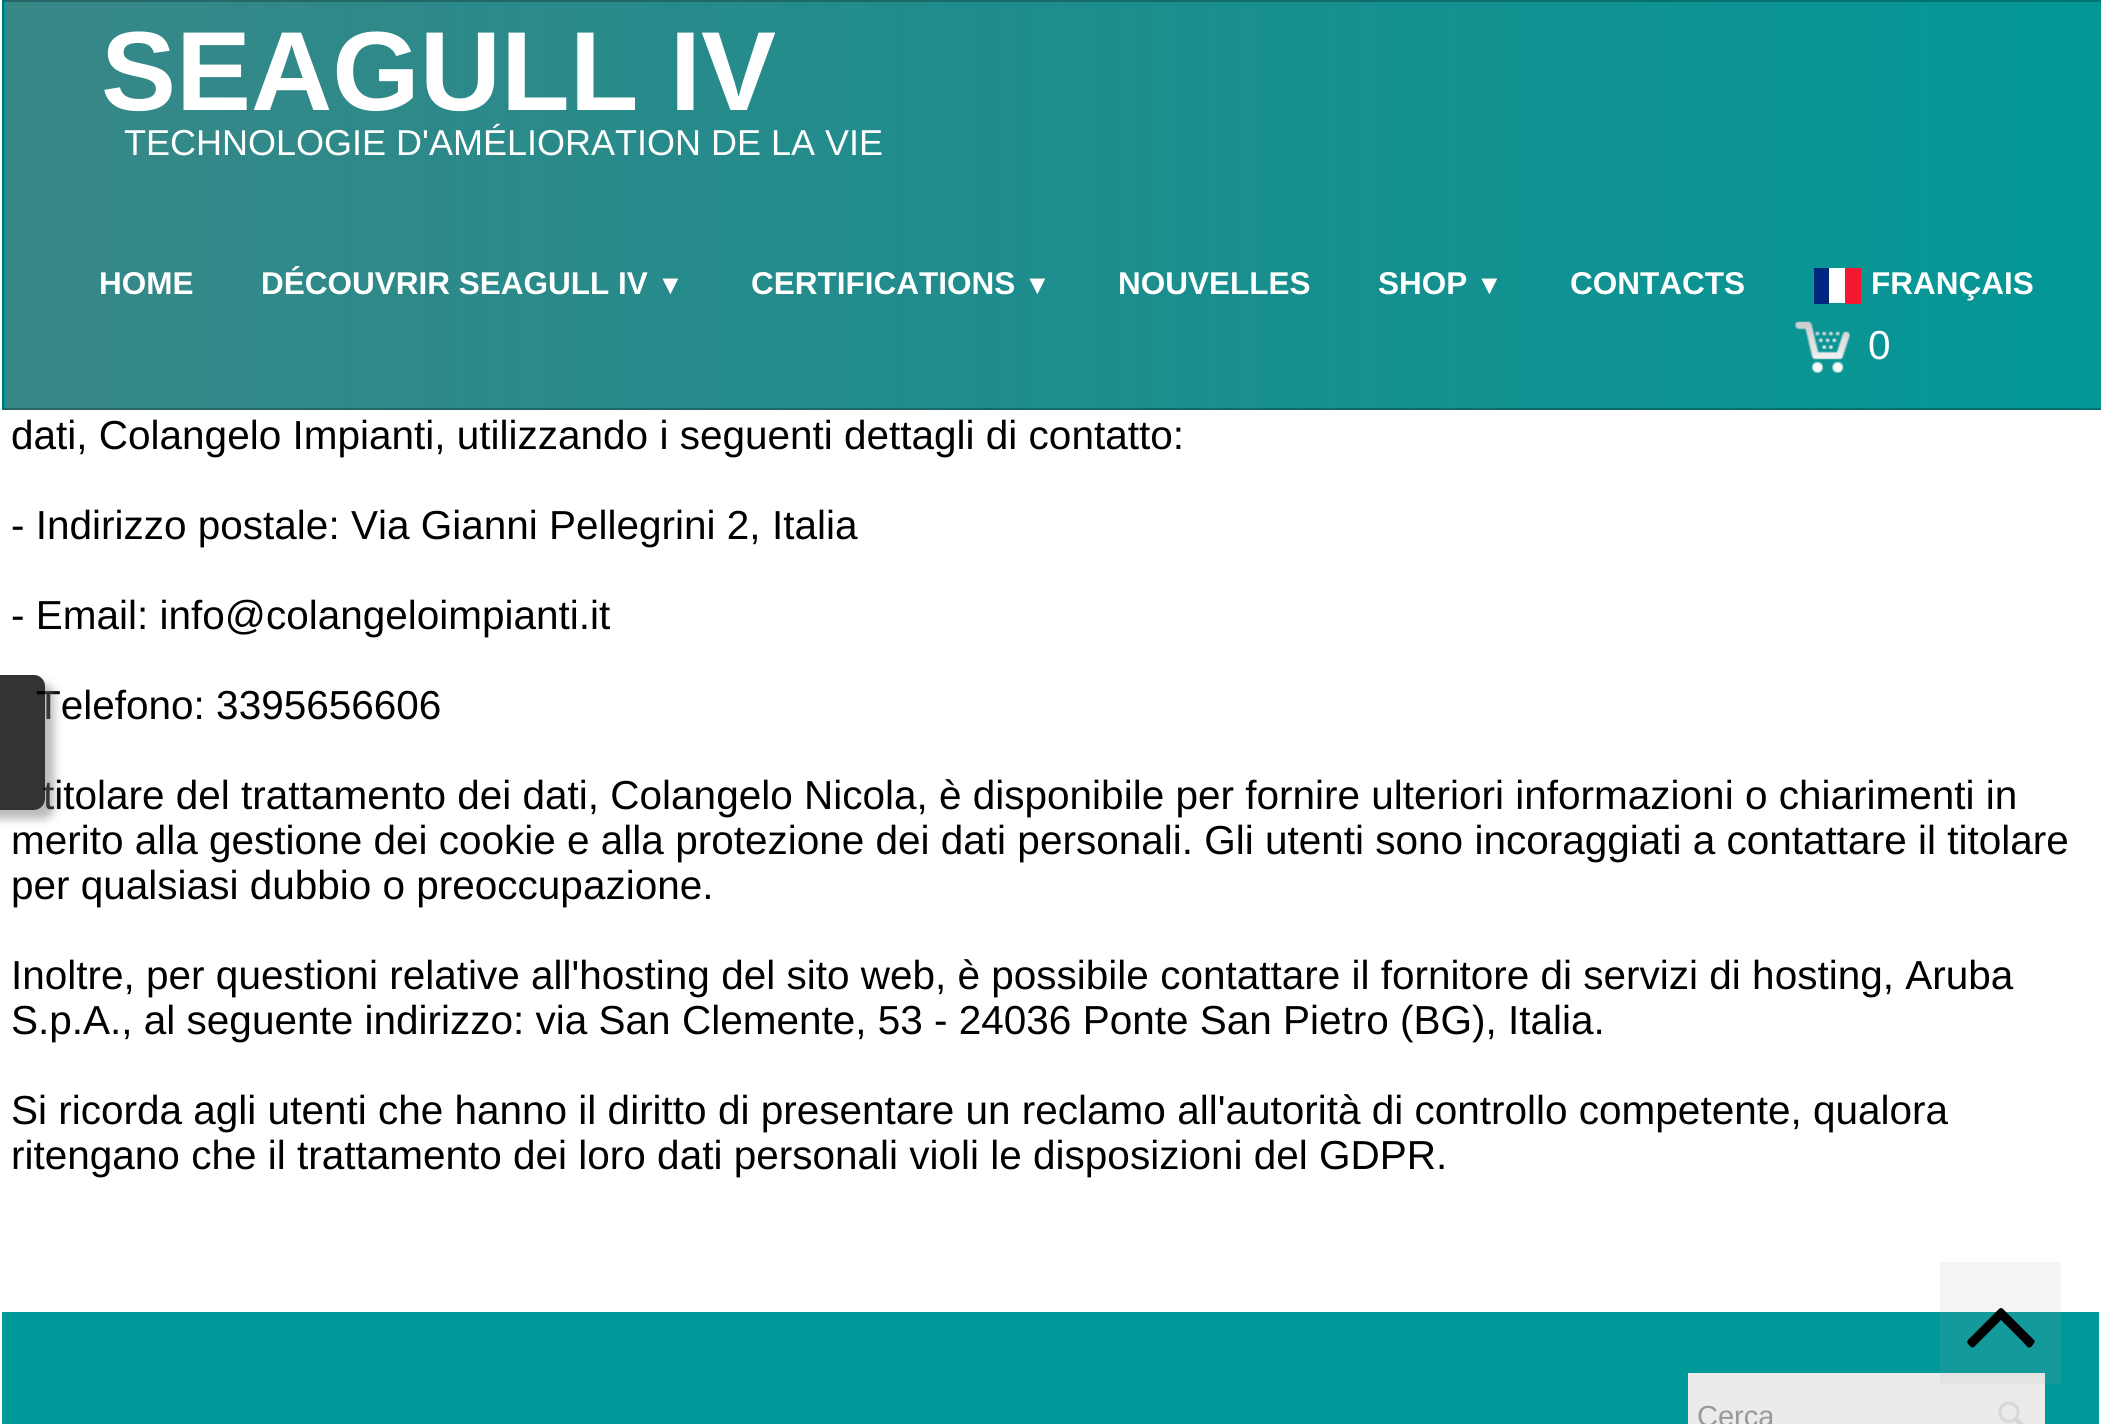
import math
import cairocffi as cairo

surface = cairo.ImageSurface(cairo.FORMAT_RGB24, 2101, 1424)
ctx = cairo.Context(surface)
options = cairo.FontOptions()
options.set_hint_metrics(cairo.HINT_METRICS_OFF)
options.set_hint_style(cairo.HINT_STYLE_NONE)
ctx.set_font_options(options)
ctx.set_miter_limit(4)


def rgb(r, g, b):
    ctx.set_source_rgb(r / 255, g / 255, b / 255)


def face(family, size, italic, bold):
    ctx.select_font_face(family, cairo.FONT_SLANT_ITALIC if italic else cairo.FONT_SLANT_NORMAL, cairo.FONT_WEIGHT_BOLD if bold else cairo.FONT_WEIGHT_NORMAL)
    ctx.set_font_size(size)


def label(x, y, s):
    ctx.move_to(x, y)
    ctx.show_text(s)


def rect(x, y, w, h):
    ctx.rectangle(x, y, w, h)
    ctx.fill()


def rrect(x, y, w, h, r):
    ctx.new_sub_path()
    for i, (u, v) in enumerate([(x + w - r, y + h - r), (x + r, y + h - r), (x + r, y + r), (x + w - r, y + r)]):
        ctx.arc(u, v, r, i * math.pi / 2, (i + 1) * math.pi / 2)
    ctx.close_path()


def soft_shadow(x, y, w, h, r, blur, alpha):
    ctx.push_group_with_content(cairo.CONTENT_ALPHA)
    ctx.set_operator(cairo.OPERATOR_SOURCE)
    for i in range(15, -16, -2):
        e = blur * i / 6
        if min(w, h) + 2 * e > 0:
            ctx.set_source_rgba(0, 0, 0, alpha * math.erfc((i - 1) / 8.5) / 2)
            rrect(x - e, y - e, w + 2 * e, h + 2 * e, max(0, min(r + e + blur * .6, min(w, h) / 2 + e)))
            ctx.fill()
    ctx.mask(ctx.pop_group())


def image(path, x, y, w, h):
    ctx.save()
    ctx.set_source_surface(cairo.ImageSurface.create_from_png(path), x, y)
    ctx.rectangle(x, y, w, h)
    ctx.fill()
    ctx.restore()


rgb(255, 255, 255)
ctx.paint()
rgb(244, 244, 244)
rect(1940, 1262, 121, 50)
ctx.save()
ctx.set_fill_rule(cairo.FILL_RULE_EVEN_ODD)
ctx.new_path()
ctx.move_to(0, 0)
ctx.line_to(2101, 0)
ctx.line_to(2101, 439)
ctx.line_to(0, 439)
ctx.close_path()
ctx.move_to(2, 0)
ctx.line_to(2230, 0)
ctx.line_to(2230, 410)
ctx.line_to(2, 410)
ctx.close_path()
ctx.clip()
rgb(255, 255, 255)
soft_shadow(-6, -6, 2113, 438, 0, 2, 0.11)
ctx.restore()
gradient = cairo.LinearGradient(-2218, 205, 4.5, 205)
gradient.add_color_stop_rgba(0, 0.22, 0.533, 0.533, 1)
gradient.add_color_stop_rgba(1, 0, 0.6, 0.6, 1)
ctx.set_source(gradient)
rect(2, 0, 3, 410)
gradient = cairo.LinearGradient(4.5, 205, 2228, 205)
gradient.add_color_stop_rgba(0, 0, 0.4, 0.4, 0.78)
gradient.add_color_stop_rgba(1, 0, 0.6, 0.6, 1)
ctx.set_source(gradient)
rect(5, 0, 2096, 410)
ctx.rectangle(3, 1, 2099, 408)
ctx.set_source_rgba(0, 0, 0, 0.25)
ctx.stroke()
face('Liberation Sans', 112.5, 0, 1)
rgb(255, 255, 255)
label(101, 110, 'SEAGULL IV')
face('Liberation Sans', 36, 0, 0)
label(124, 155, 'TECHNOLOGIE D\'AMÉLIORATION DE LA VIE')
face('Liberation Sans', 31.5, 0, 1)
label(99, 294, 'HOME')
label(261, 294, 'DÉCOUVRIR SEAGULL IV')
face('Liberation Sans', 27, 0, 1)
label(657, 294, '▼')
face('Liberation Sans', 31.5, 0, 1)
label(751, 294, 'CERTIFICATIONS')
face('Liberation Sans', 27, 0, 1)
label(1024, 294, '▼')
face('Liberation Sans', 31.5, 0, 1)
label(1118, 294, 'NOUVELLES')
label(1378, 294, 'SHOP')
face('Liberation Sans', 27, 0, 1)
label(1476, 294, '▼')
face('Liberation Sans', 31.5, 0, 1)
label(1570, 294, 'CONTACTS')
label(1871, 294, 'FRANÇAIS')
rect(1829, 268, 16, 35)
rgb(0, 38, 127)
rect(1814, 268, 15, 36)
rgb(243, 24, 48)
rect(1845, 268, 16, 36)
image('image0.png', 1795, 321, 55, 52)
face('Liberation Sans', 40.5, 0, 0)
rgb(255, 255, 255)
label(1868, 359, '0')
rgb(0, 0, 0)
label(11, 449, 'dati, Colangelo Impianti, utilizzando i seguenti dettagli di contatto:')
label(11, 539, '- Indirizzo postale: Via Gianni Pellegrini 2, Italia')
label(11, 629, '- Email: info@colangeloimpianti.it')
label(36, 719, 'Telefono: 3395656606')
label(43, 809, 'titolare del trattamento dei dati, Colangelo Nicola, è disponibile per fornire ulteriori informazioni o chiarimenti in')
label(11, 854, 'merito alla gestione dei cookie e alla protezione dei dati personali. Gli utenti sono incoraggiati a contattare il titolare')
label(11, 899, 'per qualsiasi dubbio o preoccupazione.')
label(11, 989, 'Inoltre, per questioni relative all\'hosting del sito web, è possibile contattare il fornitore di servizi di hosting, Aruba')
label(11, 1034, 'S.p.A., al seguente indirizzo: via San Clemente, 53 - 24036 Ponte San Pietro (BG), Italia.')
label(11, 1124, 'Si ricorda agli utenti che hanno il diritto di presentare un reclamo all\'autorità di controllo competente, qualora')
label(11, 1169, 'ritengano che il trattamento dei loro dati personali violi le disposizioni del GDPR.')
rgb(0, 153, 153)
rect(2, 1312, 2097, 112)
rgb(20, 154, 154)
rect(1940, 1312, 121, 72)
rgb(235, 235, 235)
rect(1688, 1373, 357, 51)
rgb(227, 227, 227)
rect(1940, 1373, 105, 11)
image('image1.png', 1998, 1401, 26, 23)
face('Liberation Sans', 29, 0, 0)
rgb(153, 153, 153)
label(1697, 1426, 'Cerca')
rgb(0, 0, 0)
ctx.new_path()
ctx.move_to(2034, 1340)
ctx.curve_to(2036, 1342, 2033, 1344, 2032, 1346)
ctx.curve_to(2028, 1350, 2027, 1346, 2023, 1342)
ctx.line_to(2001, 1320)
ctx.line_to(1974, 1347)
ctx.curve_to(1972, 1348, 1971, 1347, 1970, 1346)
ctx.curve_to(1965, 1341, 1967, 1341, 1973, 1335)
ctx.line_to(1994, 1314)
ctx.curve_to(2002, 1306, 2000, 1306, 2008, 1314)
ctx.close_path()
ctx.fill()
ctx.save()
ctx.set_fill_rule(cairo.FILL_RULE_EVEN_ODD)
ctx.new_path()
ctx.move_to(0, 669)
ctx.line_to(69, 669)
ctx.line_to(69, 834)
ctx.line_to(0, 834)
ctx.close_path()
ctx.move_to(-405, 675)
ctx.line_to(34, 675)
ctx.curve_to(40, 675, 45, 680, 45, 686)
ctx.line_to(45, 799)
ctx.curve_to(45, 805, 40, 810, 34, 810)
ctx.line_to(-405, 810)
ctx.close_path()
ctx.clip()
rgb(121, 119, 119)
soft_shadow(-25, 684, 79, 135, 11, 4.5, 0.51)
ctx.restore()
ctx.set_source_rgba(0, 0, 0, 0.8)
ctx.new_path()
ctx.move_to(-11, 675)
ctx.line_to(34, 675)
ctx.curve_to(40, 675, 45, 680, 45, 686)
ctx.line_to(45, 799)
ctx.curve_to(45, 805, 40, 810, 34, 810)
ctx.line_to(-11, 810)
ctx.close_path()
ctx.fill()
surface.write_to_png('render.png')
